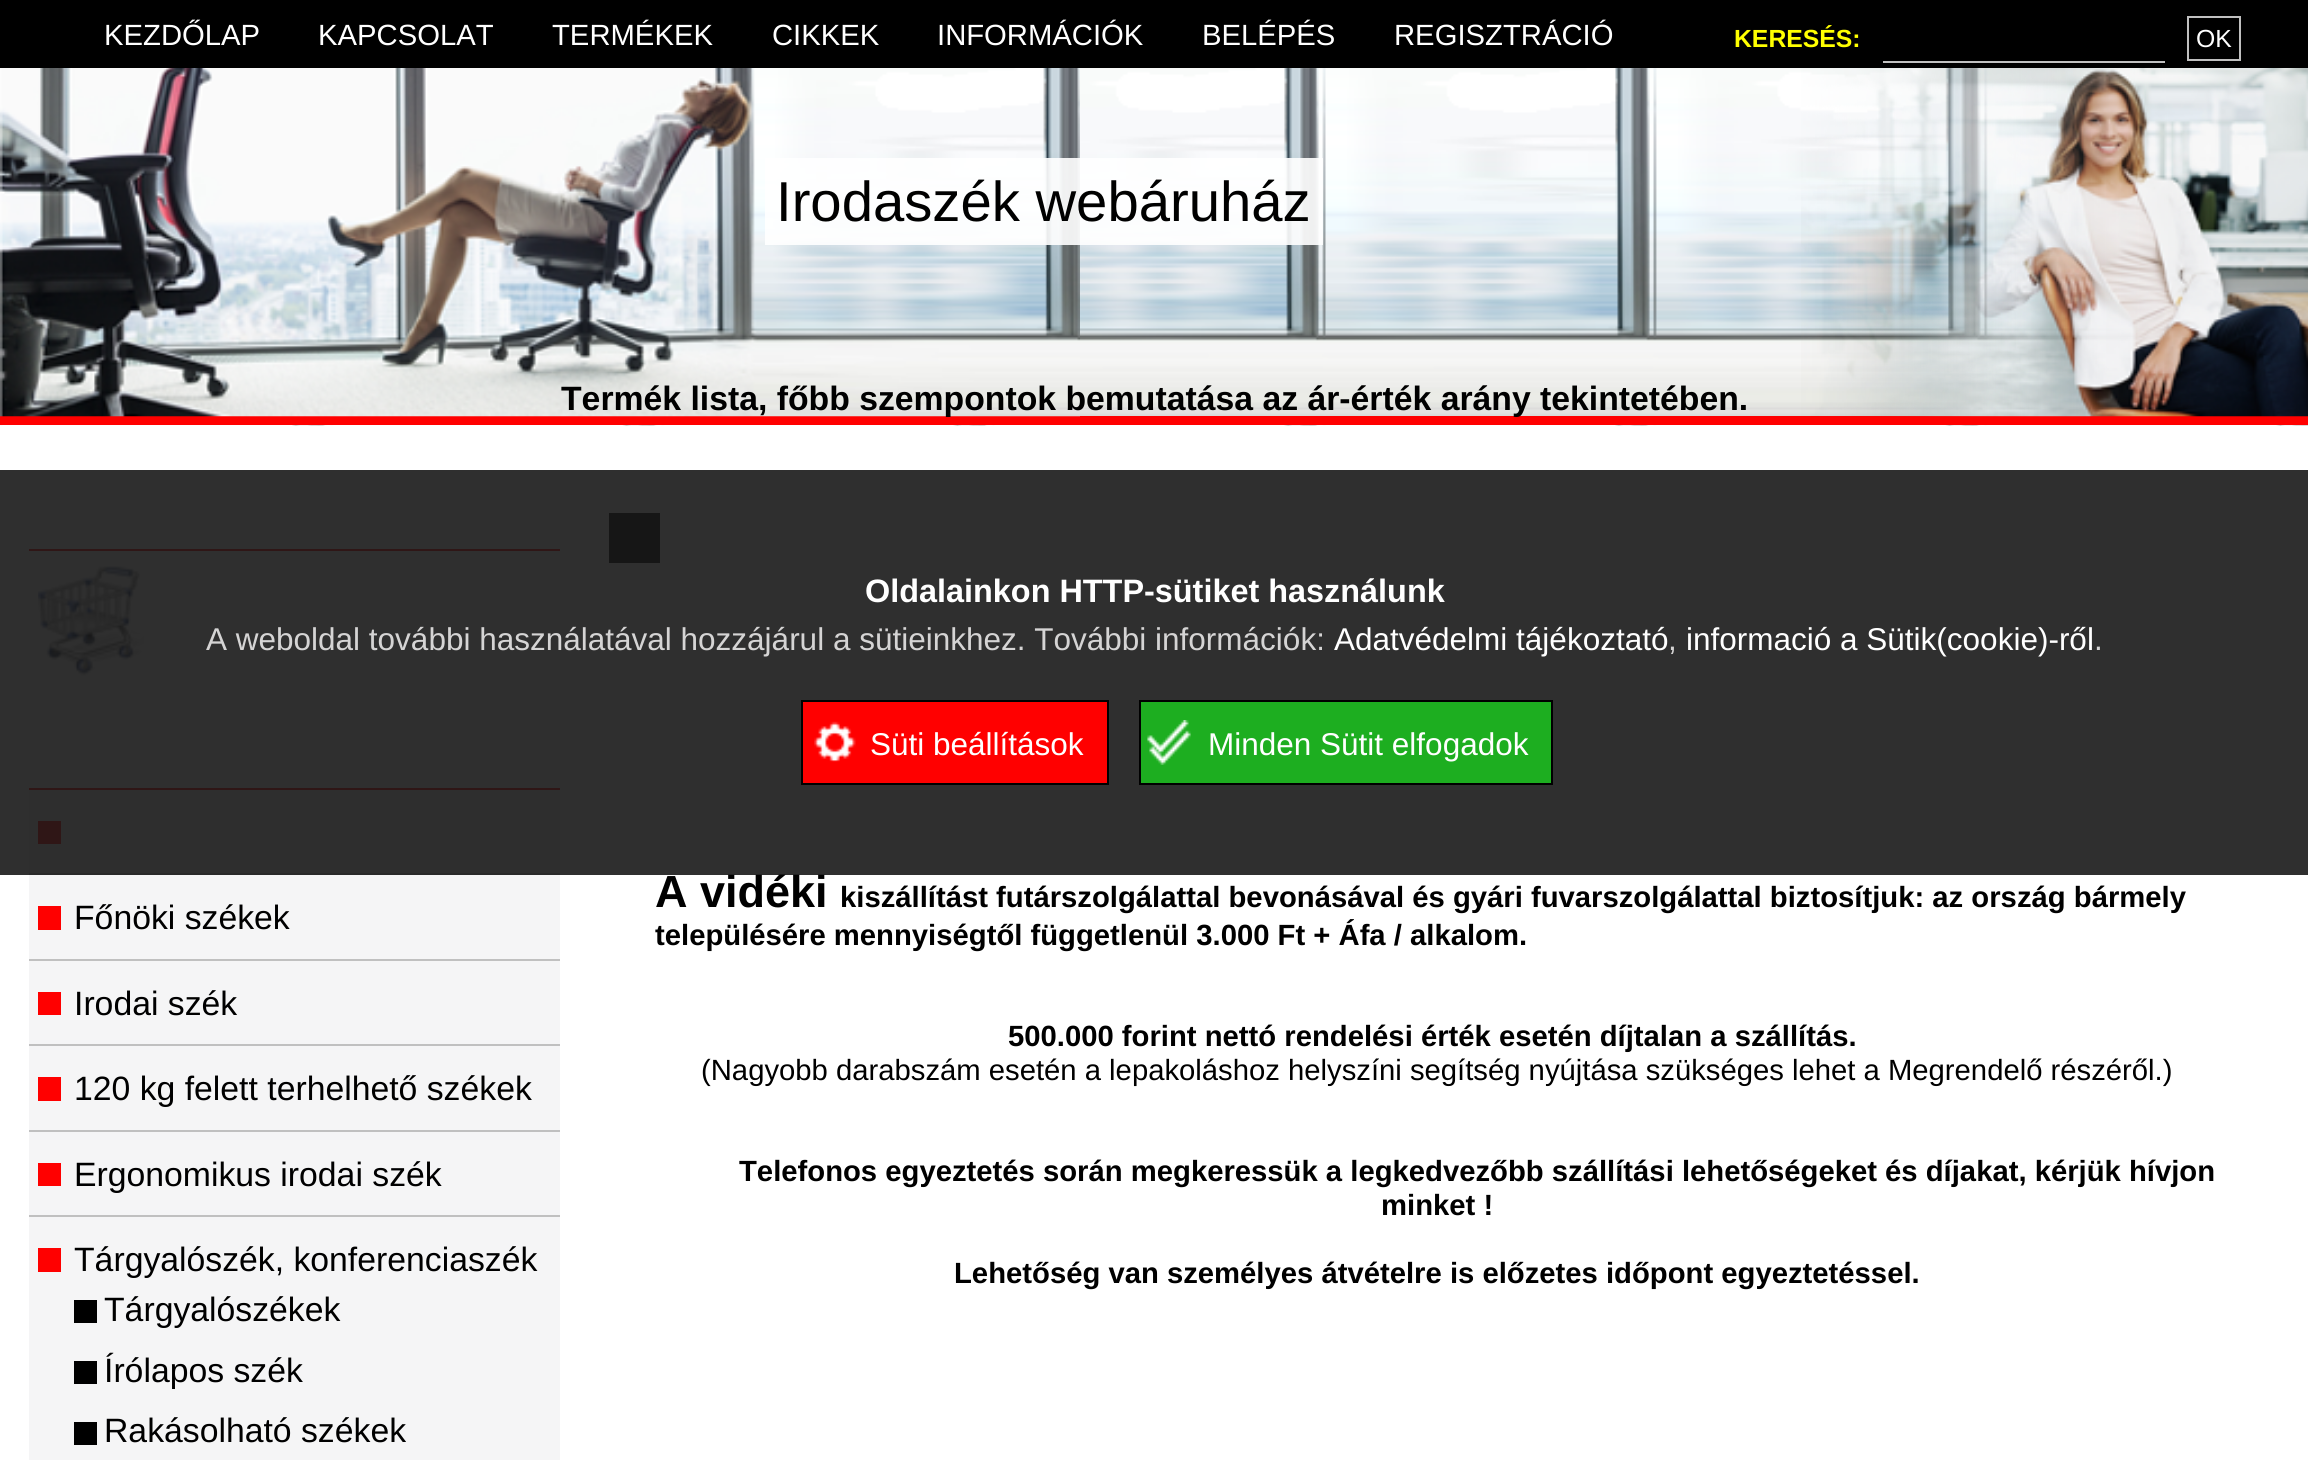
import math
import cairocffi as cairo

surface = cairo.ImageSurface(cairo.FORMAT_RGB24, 2308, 1460)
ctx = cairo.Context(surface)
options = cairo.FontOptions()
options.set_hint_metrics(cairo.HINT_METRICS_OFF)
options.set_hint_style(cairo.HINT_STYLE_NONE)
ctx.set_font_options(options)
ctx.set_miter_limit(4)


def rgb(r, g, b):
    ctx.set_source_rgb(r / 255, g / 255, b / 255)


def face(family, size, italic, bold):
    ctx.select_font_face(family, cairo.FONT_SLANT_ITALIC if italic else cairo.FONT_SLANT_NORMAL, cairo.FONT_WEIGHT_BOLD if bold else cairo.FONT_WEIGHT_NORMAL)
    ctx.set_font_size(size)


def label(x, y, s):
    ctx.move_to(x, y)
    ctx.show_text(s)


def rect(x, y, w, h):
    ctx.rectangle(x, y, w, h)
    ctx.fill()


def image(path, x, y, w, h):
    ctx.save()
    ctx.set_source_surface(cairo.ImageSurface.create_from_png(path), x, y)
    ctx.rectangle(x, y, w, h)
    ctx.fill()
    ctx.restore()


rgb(255, 255, 255)
ctx.paint()
rgb(0, 0, 0)
rect(0, 0, 2308, 68)
face('Liberation Sans', 29.25, 0, 0)
rgb(255, 255, 255)
label(104, 45, 'KEZDŐLAP')
label(318, 45, 'KAPCSOLAT')
label(552, 45, 'TERMÉKEK')
label(772, 45, 'CIKKEK')
label(937, 45, 'INFORMÁCIÓK')
label(1202, 45, 'BELÉPÉS')
label(1394, 45, 'REGISZTRÁCIÓ')
face('Liberation Sans', 24.75, 0, 1)
rgb(255, 255, 0)
label(1734, 47, 'KERESÉS:')
ctx.rectangle(2188, 17, 52, 43)
rgb(192, 192, 192)
ctx.stroke()
face('Liberation Sans', 24.75, 0, 0)
rgb(255, 255, 255)
label(2196, 47, 'OK')
rgb(192, 192, 192)
rect(1883, 61, 282, 2)
image('image1.png', 0, 68, 2308, 358)
rgb(255, 0, 0)
rect(0, 416, 2308, 9)
image('image2.png', 0, 68, 1080, 349)
ctx.set_source_rgba(1, 1, 1, 0.9)
rect(765, 158, 558, 87)
face('Liberation Sans', 56.25, 0, 0)
rgb(0, 0, 0)
label(776, 221, 'Irodaszék webáruház')
image('image0.png', 1801, 68, 507, 349)
face('Liberation Sans', 33.75, 0, 1)
label(561, 410, 'Termék lista, főbb szempontok bemutatása az ár-érték arány tekintetében.')
rgb(255, 0, 0)
rect(29, 549, 531, 2)
image('image5.png', 38, 566, 106, 110)
rect(29, 788, 531, 2)
rgb(245, 245, 246)
rect(29, 790, 531, 670)
rgb(255, 0, 0)
rect(38, 821, 23, 23)
rgb(192, 192, 192)
rect(29, 873, 531, 2)
rgb(0, 0, 0)
rect(609, 513, 51, 50)
face('Liberation Sans', 45, 0, 1)
label(655, 907, 'A vidéki')
ctx.set_source_rgba(0.098, 0.098, 0.098, 0.9)
rect(0, 470, 2308, 405)
face('Liberation Sans', 32.4, 0, 1)
rgb(255, 255, 255)
label(865, 602, 'Oldalainkon HTTP-sütiket használunk')
face('Liberation Sans', 31.5, 0, 0)
rgb(213, 212, 212)
label(206, 650, 'A weboldal további használatával hozzájárul a sütieinkhez. További információk:')
rgb(255, 255, 255)
label(1334, 650, 'Adatvédelmi tájékoztató')
rgb(213, 212, 212)
label(1668, 650, ',')
rgb(255, 255, 255)
label(1686, 650, 'informació a Sütik(cookie)-ről')
rgb(213, 212, 212)
label(2094, 650, '.')
rgb(255, 0, 0)
rect(803, 702, 304, 81)
image('image3.png', 814, 721, 42, 41)
ctx.rectangle(802, 701, 306, 83)
rgb(0, 0, 0)
ctx.stroke()
rgb(255, 255, 255)
label(870, 755, 'Süti beállítások')
rgb(29, 174, 32)
rect(1141, 702, 410, 81)
image('image4.png', 1147, 720, 44, 45)
ctx.rectangle(1140, 701, 412, 83)
rgb(0, 0, 0)
ctx.stroke()
rgb(255, 255, 255)
label(1208, 755, 'Minden Sütit elfogadok')
rgb(255, 0, 0)
rect(38, 906, 23, 24)
rgb(192, 192, 192)
rect(29, 959, 531, 2)
face('Liberation Sans', 33.75, 0, 0)
rgb(0, 0, 0)
label(74, 929, 'Főnöki székek')
rgb(255, 0, 0)
rect(38, 992, 23, 23)
rgb(192, 192, 192)
rect(29, 1044, 531, 2)
rgb(0, 0, 0)
label(74, 1015, 'Irodai szék')
rgb(255, 0, 0)
rect(38, 1077, 23, 24)
rgb(192, 192, 192)
rect(29, 1130, 531, 2)
rgb(0, 0, 0)
label(74, 1100, '120 kg felett terhelhető székek')
rgb(255, 0, 0)
rect(38, 1163, 23, 23)
rgb(192, 192, 192)
rect(29, 1215, 531, 2)
rgb(0, 0, 0)
label(74, 1186, 'Ergonomikus irodai szék')
rgb(255, 0, 0)
rect(38, 1248, 23, 24)
rgb(0, 0, 0)
label(74, 1271, 'Tárgyalószék, konferenciaszék')
rect(74, 1300, 23, 23)
label(104, 1321, 'Tárgyalószékek')
rect(74, 1361, 23, 23)
label(104, 1382, 'Írólapos szék')
rect(74, 1422, 23, 23)
label(104, 1442, 'Rakásolható székek')
face('Liberation Sans', 29.25, 0, 1)
label(840, 907, 'kiszállítást futárszolgálattal bevonásával és gyári fuvarszolgálattal biztosítjuk: az ország bármely')
label(655, 945, 'településére mennyiségtől függetlenül 3.000 Ft + Áfa / alkalom.')
label(1008, 1046, '500.000 forint nettó rendelési érték esetén díjtalan a szállítás.')
face('Liberation Sans', 29.25, 0, 0)
label(701, 1080, '(Nagyobb darabszám esetén a lepakoláshoz helyszíni segítség nyújtása szükséges lehet a Megrendelő részéről.)')
face('Liberation Sans', 29.25, 0, 1)
label(739, 1181, 'Telefonos egyeztetés során megkeressük a legkedvezőbb szállítási lehetőségeket és díjakat, kérjük hívjon')
label(1381, 1215, 'minket !')
label(954, 1283, 'Lehetőség van személyes átvételre is előzetes időpont egyeztetéssel.')
surface.write_to_png('render.png')
